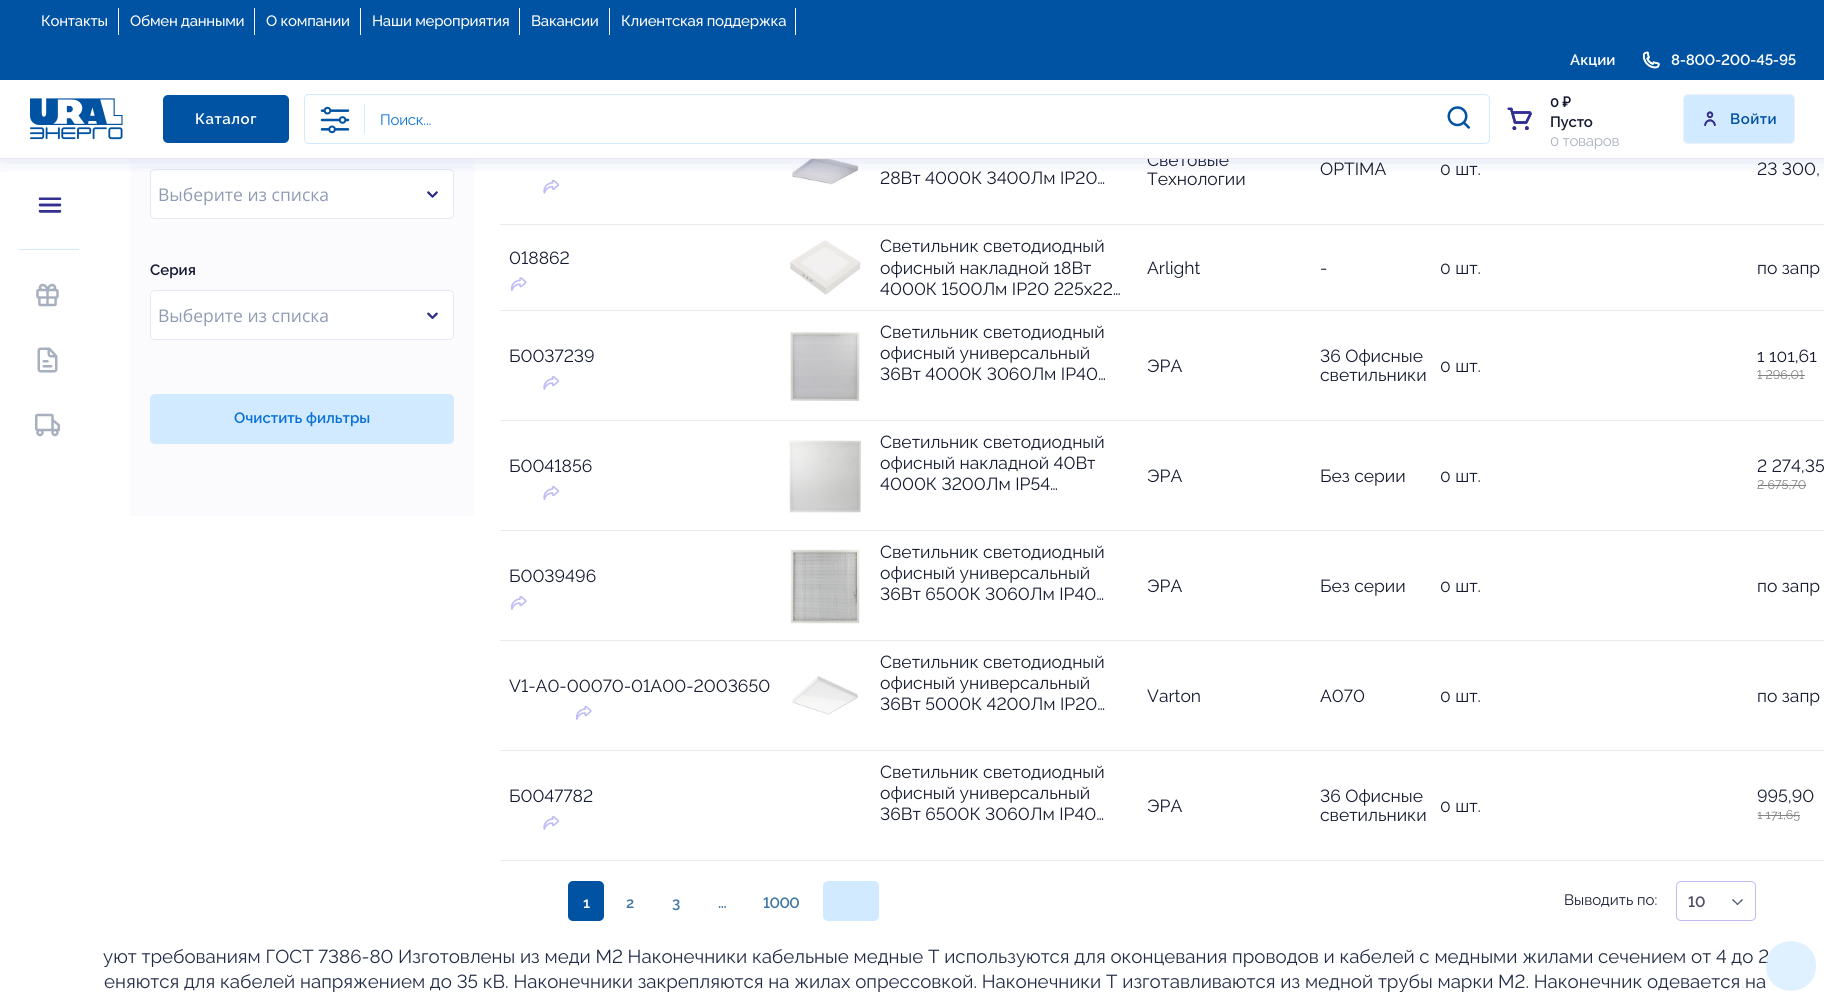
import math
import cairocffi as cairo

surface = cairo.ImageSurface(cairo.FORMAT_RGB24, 1824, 999)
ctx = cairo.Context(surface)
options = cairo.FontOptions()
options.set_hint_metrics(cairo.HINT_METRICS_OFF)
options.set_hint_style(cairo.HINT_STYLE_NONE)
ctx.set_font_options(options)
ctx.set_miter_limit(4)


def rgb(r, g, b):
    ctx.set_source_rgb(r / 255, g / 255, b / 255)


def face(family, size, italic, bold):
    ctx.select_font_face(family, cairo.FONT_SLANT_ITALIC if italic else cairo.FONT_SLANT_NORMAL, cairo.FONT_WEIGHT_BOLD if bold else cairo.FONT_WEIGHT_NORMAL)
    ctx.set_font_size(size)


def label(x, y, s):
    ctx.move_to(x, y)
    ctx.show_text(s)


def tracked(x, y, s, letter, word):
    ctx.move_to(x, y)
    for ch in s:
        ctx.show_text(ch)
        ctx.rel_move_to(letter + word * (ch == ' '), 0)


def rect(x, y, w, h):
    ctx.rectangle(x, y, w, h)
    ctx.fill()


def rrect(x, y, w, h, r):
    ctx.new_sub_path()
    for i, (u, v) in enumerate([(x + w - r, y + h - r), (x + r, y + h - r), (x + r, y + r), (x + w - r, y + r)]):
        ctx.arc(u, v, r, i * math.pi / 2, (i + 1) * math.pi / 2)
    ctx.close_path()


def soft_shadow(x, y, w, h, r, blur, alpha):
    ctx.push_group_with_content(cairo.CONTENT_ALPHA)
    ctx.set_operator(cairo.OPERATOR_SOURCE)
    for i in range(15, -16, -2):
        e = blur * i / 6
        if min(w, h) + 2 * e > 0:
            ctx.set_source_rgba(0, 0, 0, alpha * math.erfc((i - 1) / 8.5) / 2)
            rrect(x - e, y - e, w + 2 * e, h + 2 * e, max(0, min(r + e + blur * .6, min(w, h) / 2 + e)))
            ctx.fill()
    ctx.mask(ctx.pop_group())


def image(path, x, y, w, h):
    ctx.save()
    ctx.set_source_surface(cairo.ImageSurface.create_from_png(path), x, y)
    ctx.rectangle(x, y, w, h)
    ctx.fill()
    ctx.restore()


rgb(255, 255, 255)
ctx.paint()
face('Raleway', 17.5, 0, 0)
rgb(21, 26, 48)
label(1147, 166, 'Световые')
rgb(255, 255, 255)
rect(1148, 153, 80, 5)
rgb(251, 251, 254)
rect(130, 159, 344, 357)
rgb(255, 255, 255)
rrect(150.5, 169.5, 303, 49, 4.5)
ctx.fill_preserve()
rgb(228, 233, 242)
ctx.set_line_width(1)
ctx.stroke()
image('image10.png', 427, 191, 11, 7)
image('image12.png', 543, 179, 17, 15)
image('image13.png', 792, 159, 67, 26)
ctx.save()
ctx.rectangle(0, 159, 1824, 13)
ctx.clip()
rgb(27, 67, 187)
soft_shadow(0, -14, 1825, 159, 0, 16, 0.45)
ctx.restore()
rgb(230, 230, 230)
rect(0, 158, 1824, 1)
rgb(0, 82, 162)
rect(0, 0, 1824, 80)
face('Raleway Medium', 15, 0, 0)
rgb(255, 255, 255)
tracked(41, 26, 'Контакты', -0.25, 0)
rect(118, 8, 1, 27)
tracked(130, 26, 'Обмен данными', -0.25, 0)
rect(254, 8, 1, 27)
tracked(266, 26, 'О компании', -0.25, 0)
rect(360, 8, 1, 27)
tracked(372, 26, 'Наши мероприятия', -0.25, 0)
rect(519, 8, 1, 27)
tracked(531, 26, 'Вакансии', -0.25, 0)
rect(609, 8, 1, 27)
tracked(621, 26, 'Клиентская поддержка', -0.25, 0)
rect(795, 8, 1, 27)
face('Raleway SemiBold', 15, 0, 0)
label(1570, 65, 'Акции')
image('image0.png', 1642, 51, 18, 18)
face('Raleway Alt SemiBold', 15, 0, 0)
tracked(1671, 65, '8-800-200-45-95', -0.25, 0)
image('image1.png', 30, 98, 93, 42)
rgb(0, 82, 162)
rrect(163, 95, 126, 48, 5)
ctx.fill()
face('Raleway SemiBold', 15, 0, 0)
rgb(255, 255, 255)
tracked(195, 124, 'Каталог', 0.5, 0)
rrect(304.5, 94.5, 1185, 49, 4.5)
rgb(210, 234, 255)
ctx.stroke()
image('image2.png', 320, 106, 30, 28)
rect(364, 104, 1, 30)
face('Raleway', 15, 0, 0)
rgb(9, 113, 215)
tracked(380, 125, 'Поиск...', -0.25, 0)
image('image3.png', 1447, 106, 23, 23)
image('image4.png', 1507, 107, 25, 23)
face('Raleway SemiBold', 15, 0, 0)
rgb(21, 26, 48)
tracked(1550, 107, '0 ₽', -0.25, 0)
tracked(1550, 127, 'Пусто', -0.25, 0)
face('Raleway', 15, 0, 0)
rgb(168, 176, 191)
tracked(1550, 146, '0 товаров', -0.25, 0)
rgb(210, 234, 255)
rrect(1683.5, 94.5, 111, 49, 4.5)
ctx.fill_preserve()
rgb(237, 241, 247)
ctx.stroke()
image('image5.png', 1704, 111, 12, 15)
face('Raleway SemiBold', 15, 0, 0)
rgb(0, 82, 162)
tracked(1730, 124, 'Войти', 0.5, 0)
image('image6.png', 38, 197, 24, 16)
rgb(210, 234, 255)
rect(19, 249, 60, 1)
image('image7.png', 36, 283, 23, 24)
image('image8.png', 37, 347, 21, 26)
image('image9.png', 35, 413, 25, 24)
face('Open Sans', 17.5, 0, 0)
rgb(143, 155, 179)
label(158, 201, 'Выберите из списка')
face('Raleway SemiBold', 15, 0, 0)
rgb(21, 26, 48)
label(150, 275, 'Серия')
rgb(255, 255, 255)
rrect(150.5, 290.5, 303, 49, 4.5)
ctx.fill_preserve()
rgb(228, 233, 242)
ctx.stroke()
face('Open Sans', 17.5, 0, 0)
rgb(143, 155, 179)
label(158, 322, 'Выберите из списка')
image('image11.png', 427, 312, 11, 7)
rgb(210, 234, 255)
rrect(150, 394, 304, 50, 5)
ctx.fill()
face('Raleway SemiBold', 15, 0, 0)
rgb(9, 113, 215)
label(234, 423, 'Очистить фильтры')
face('Raleway Alt', 17.5, 0, 0)
rgb(21, 26, 48)
label(880, 184, '28Вт 4000К 3400Лм IP20…')
face('Raleway', 17.5, 0, 0)
label(1147, 185, 'Технологии')
label(1320, 175, 'OPTIMA')
label(1440, 175, '0 шт.')
rgb(231, 233, 237)
rect(500, 224, 1324, 1)
face('Raleway Alt', 17.5, 0, 0)
rgb(21, 26, 48)
label(1757, 175, '23 300,')
label(509, 264, '018862')
image('image14.png', 510, 277, 17, 15)
image('image15.png', 790, 240, 71, 55)
face('Raleway', 17.5, 0, 0)
label(880, 252, 'Светильник светодиодный')
label(880, 274, 'офисный накладной 18Вт')
face('Raleway Alt', 17.5, 0, 0)
label(880, 295, '4000К 1500Лм IP20 225х22…')
face('Raleway', 17.5, 0, 0)
label(1147, 274, 'Arlight')
label(1320, 274, '-')
label(1440, 274, '0 шт.')
rgb(231, 233, 237)
rect(500, 310, 1324, 1)
rgb(21, 26, 48)
label(1757, 274, 'по запр')
face('Raleway Alt', 17.5, 0, 0)
label(509, 362, 'Б0037239')
image('image16.png', 543, 375, 17, 15)
image('image17.png', 789, 332, 71, 69)
face('Raleway', 17.5, 0, 0)
label(880, 338, 'Светильник светодиодный')
label(880, 359, 'офисный универсальный')
face('Raleway Alt', 17.5, 0, 0)
label(880, 380, '36Вт 4000К 3060Лм IP40…')
face('Raleway', 17.5, 0, 0)
label(1147, 372, 'ЭРА')
face('Raleway Alt', 17.5, 0, 0)
label(1320, 362, '36 Офисные')
face('Raleway', 17.5, 0, 0)
label(1320, 381, 'светильники')
label(1440, 372, '0 шт.')
rgb(231, 233, 237)
rect(500, 420, 1324, 1)
rgb(21, 26, 48)
label(1757, 362, '1 101,61')
face('Raleway Alt', 12.5, 0, 0)
rgb(130, 130, 130)
label(1757, 379, '1 296,01')
rect(1758, 375, 47, 1)
face('Raleway Alt', 17.5, 0, 0)
rgb(21, 26, 48)
label(509, 472, 'Б0041856')
image('image16.png', 543, 485, 17, 15)
image('image18.png', 789, 440, 72, 73)
face('Raleway', 17.5, 0, 0)
label(880, 448, 'Светильник светодиодный')
face('Raleway Alt', 17.5, 0, 0)
label(880, 469, 'офисный накладной 40Вт')
label(880, 490, '4000К 3200Лм IP54…')
face('Raleway', 17.5, 0, 0)
label(1147, 482, 'ЭРА')
label(1320, 482, 'Без серии')
label(1440, 482, '0 шт.')
rgb(231, 233, 237)
rect(500, 530, 1324, 1)
face('Raleway Alt', 17.5, 0, 0)
rgb(21, 26, 48)
label(1757, 472, '2 274,35')
face('Raleway Alt', 12.5, 0, 0)
rgb(130, 130, 130)
label(1757, 489, '2 675,70')
rect(1758, 485, 48, 1)
face('Raleway Alt', 17.5, 0, 0)
rgb(21, 26, 48)
label(509, 582, 'Б0039496')
image('image19.png', 510, 595, 17, 15)
image('image20.png', 790, 549, 70, 75)
face('Raleway', 17.5, 0, 0)
label(880, 558, 'Светильник светодиодный')
label(880, 579, 'офисный универсальный')
face('Raleway Alt', 17.5, 0, 0)
label(880, 600, '36Вт 6500К 3060Лм IP40…')
face('Raleway', 17.5, 0, 0)
label(1147, 592, 'ЭРА')
label(1320, 592, 'Без серии')
label(1440, 592, '0 шт.')
rgb(231, 233, 237)
rect(500, 640, 1324, 1)
rgb(21, 26, 48)
label(1757, 592, 'по запр')
face('Raleway Alt', 17.5, 0, 0)
label(509, 692, 'V1-A0-00070-01A00-2003650')
image('image19.png', 575, 705, 17, 15)
image('image21.png', 792, 676, 66, 39)
face('Raleway', 17.5, 0, 0)
label(880, 668, 'Светильник светодиодный')
label(880, 689, 'офисный универсальный')
face('Raleway Alt', 17.5, 0, 0)
label(880, 710, '36Вт 5000К 4200Лм IP20…')
face('Raleway', 17.5, 0, 0)
label(1147, 702, 'Varton')
face('Raleway Alt', 17.5, 0, 0)
label(1320, 702, 'A070')
face('Raleway', 17.5, 0, 0)
label(1440, 702, '0 шт.')
rgb(231, 233, 237)
rect(500, 750, 1324, 1)
rgb(21, 26, 48)
label(1757, 702, 'по запр')
face('Raleway Alt', 17.5, 0, 0)
label(509, 802, 'Б0047782')
image('image16.png', 543, 815, 17, 15)
face('Raleway', 17.5, 0, 0)
label(880, 778, 'Светильник светодиодный')
label(880, 799, 'офисный универсальный')
face('Raleway Alt', 17.5, 0, 0)
label(880, 820, '36Вт 6500К 3060Лм IP40…')
face('Raleway', 17.5, 0, 0)
label(1147, 812, 'ЭРА')
face('Raleway Alt', 17.5, 0, 0)
label(1320, 802, '36 Офисные')
face('Raleway', 17.5, 0, 0)
label(1320, 821, 'светильники')
label(1440, 812, '0 шт.')
rgb(231, 233, 237)
rect(500, 860, 1324, 1)
face('Raleway Alt', 17.5, 0, 0)
rgb(21, 26, 48)
label(1757, 802, '995,90')
face('Raleway', 12.5, 0, 0)
rgb(130, 130, 130)
label(1757, 819, '1 171,65')
rect(1758, 815, 42, 1)
rgb(0, 82, 162)
rrect(568, 881, 36, 40, 5)
ctx.fill()
face('Raleway SemiBold', 15, 0, 0)
rgb(255, 255, 255)
tracked(583, 908, '1', -0.5, 0)
rgb(65, 119, 165)
tracked(626, 908, '2', -0.5, 0)
tracked(672, 908, '3', -0.5, 0)
tracked(718, 908, '...', -0.5, 0)
face('Raleway Alt SemiBold', 15, 0, 0)
tracked(763, 908, '1000', -0.5, 0)
rgb(210, 234, 255)
rrect(823, 881, 56, 40, 5)
ctx.fill()
face('Raleway', 15, 0, 0)
rgb(21, 26, 48)
label(1564, 905, 'Выводить по:')
rrect(1676.5, 881.5, 79, 39, 4.5)
rgb(191, 189, 244)
ctx.stroke()
face('Raleway Alt SemiBold', 15, 0, 0)
rgb(77, 76, 103)
label(1688, 907, '10')
rgb(74, 82, 113)
ctx.new_path()
ctx.move_to(1737.5, 905)
ctx.line_to(1732, 900)
ctx.line_to(1733, 899)
ctx.line_to(1738.5, 904.5)
ctx.close_path()
ctx.fill()
ctx.new_path()
ctx.move_to(1737.5, 905)
ctx.line_to(1736.5, 904.5)
ctx.line_to(1742, 899)
ctx.line_to(1743, 900)
ctx.close_path()
ctx.fill()
face('Raleway Alt', 18.75, 0, 0)
rgb(34, 43, 69)
label(103, 963, 'уют требованиям ГОСТ 7386-80 Изготовлены из меди М2 Наконечники кабельные медные Т используются для оконцевания проводов и кабелей с медными жилами сечением от 4 до 2')
ctx.set_source_rgba(0.824, 0.918, 1, 0.7)
ctx.new_path()
ctx.move_to(1766, 966)
ctx.curve_to(1766, 933, 1816, 933, 1816, 966)
ctx.curve_to(1816, 999, 1766, 999, 1766, 966)
ctx.close_path()
ctx.fill()
rgb(34, 43, 69)
label(104, 988, 'еняются для кабелей напряжением до 35 кВ. Наконечники закрепляются на жилах опрессовкой. Наконечники Т изготавливаются из медной трубы марки М2. Наконечник одевается на')
surface.write_to_png('render.png')
